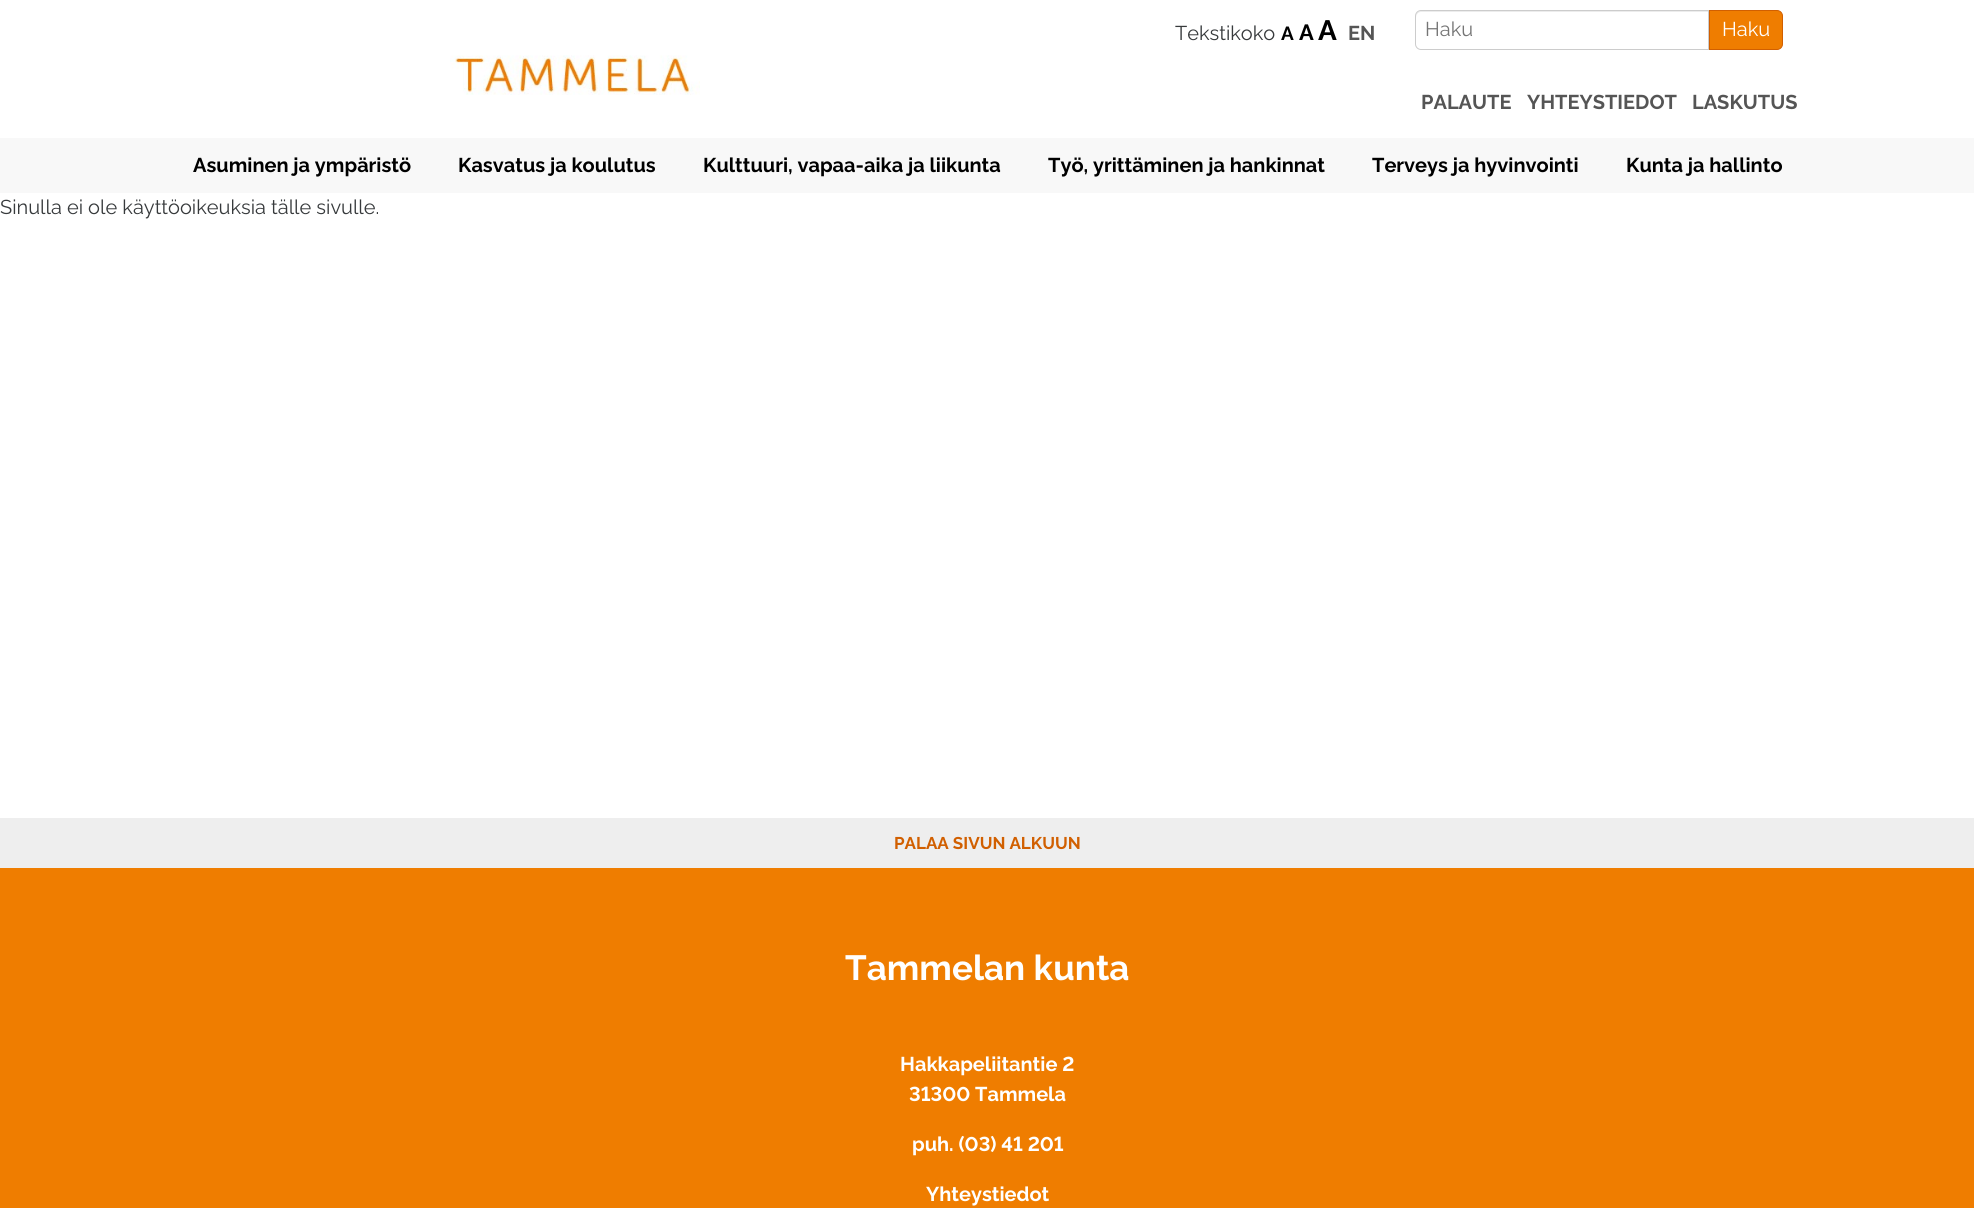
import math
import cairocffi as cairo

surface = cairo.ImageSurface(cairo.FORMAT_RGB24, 1974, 1208)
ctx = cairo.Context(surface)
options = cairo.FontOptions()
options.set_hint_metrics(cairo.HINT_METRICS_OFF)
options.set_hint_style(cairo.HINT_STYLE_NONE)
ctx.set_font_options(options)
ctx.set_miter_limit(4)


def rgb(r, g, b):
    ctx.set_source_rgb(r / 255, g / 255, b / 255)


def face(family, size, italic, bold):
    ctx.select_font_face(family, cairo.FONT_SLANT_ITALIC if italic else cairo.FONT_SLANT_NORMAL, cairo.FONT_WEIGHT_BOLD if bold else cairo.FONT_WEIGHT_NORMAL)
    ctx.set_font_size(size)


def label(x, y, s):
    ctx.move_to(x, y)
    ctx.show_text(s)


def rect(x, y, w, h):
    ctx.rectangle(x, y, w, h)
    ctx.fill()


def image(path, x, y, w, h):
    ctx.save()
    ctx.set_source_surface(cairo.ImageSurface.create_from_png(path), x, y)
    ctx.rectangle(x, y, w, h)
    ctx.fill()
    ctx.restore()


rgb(255, 255, 255)
ctx.paint()
image('image0.png', 450, 55, 250, 40)
face('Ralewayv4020', 20, 0, 0)
rgb(55, 58, 60)
label(1175, 40, 'Tekstikoko')
face('Ralewayv4020', 19, 0, 1)
rgb(0, 0, 0)
label(1281, 40, 'A')
face('Ralewayv4020', 22, 0, 1)
label(1299, 40, 'A')
face('Ralewayv4020', 28, 0, 1)
label(1318, 40, 'A')
face('Ralewayv4020', 20, 0, 1)
rgb(85, 85, 85)
label(1348, 40, 'EN')
rgb(236, 236, 236)
ctx.new_path()
ctx.move_to(1421, 12)
ctx.line_to(1708, 12)
ctx.line_to(1708, 11)
ctx.line_to(1420, 11)
ctx.curve_to(1416, 12, 1416, 15, 1416, 18)
ctx.curve_to(1416, 15, 1418, 12, 1421, 12)
ctx.close_path()
ctx.fill()
ctx.new_path()
ctx.move_to(1421, 10.5)
ctx.line_to(1708.5, 10.5)
ctx.line_to(1708.5, 49.5)
ctx.line_to(1421, 49.5)
ctx.curve_to(1418, 49.5, 1415.5, 47, 1415.5, 44)
ctx.line_to(1415.5, 16)
ctx.curve_to(1415.5, 13, 1418, 10.5, 1421, 10.5)
ctx.close_path()
rgb(204, 204, 204)
ctx.set_line_width(1)
ctx.stroke()
face('Ralewayv4020', 20, 0, 0)
rgb(117, 117, 117)
label(1425, 36, 'Haku')
rgb(239, 125, 0)
ctx.new_path()
ctx.move_to(1709.5, 10.5)
ctx.line_to(1777, 10.5)
ctx.curve_to(1780, 10.5, 1782.5, 13, 1782.5, 16)
ctx.line_to(1782.5, 44)
ctx.curve_to(1782.5, 47, 1780, 49.5, 1777, 49.5)
ctx.line_to(1709.5, 49.5)
ctx.close_path()
ctx.fill_preserve()
rgb(209, 95, 0)
ctx.stroke()
rgb(255, 255, 255)
label(1722, 36, 'Haku')
face('Ralewayv4020', 20, 0, 1)
rgb(85, 85, 85)
label(1421, 109, 'PALAUTE')
label(1527, 109, 'YHTEYSTIEDOT')
label(1692, 109, 'LASKUTUS')
rgb(248, 248, 248)
rect(0, 138, 1974, 55)
rgb(0, 0, 0)
label(193, 172, 'Asuminen ja ympäristö')
label(458, 172, 'Kasvatus ja koulutus')
label(703, 172, 'Kulttuuri, vapaa-aika ja liikunta')
label(1048, 172, 'Työ, yrittäminen ja hankinnat')
label(1372, 172, 'Terveys ja hyvinvointi')
label(1626, 172, 'Kunta ja hallinto')
face('Ralewayv4020', 20, 0, 0)
rgb(55, 58, 60)
label(0, 214, 'Sinulla ei ole käyttöoikeuksia tälle sivulle.')
rgb(238, 238, 238)
rect(0, 818, 1974, 50)
face('Ralewayv4020', 17, 0, 1)
rgb(209, 95, 0)
label(894, 849, 'PALAA SIVUN ALKUUN')
rgb(239, 125, 0)
rect(0, 868, 1974, 340)
face('Ralewayv4020', 35, 0, 1)
rgb(255, 255, 255)
label(845, 980, 'Tammelan kunta')
face('Ralewayv4020', 20, 0, 1)
label(900, 1071, 'Hakkapeliitantie 2')
label(909, 1101, '31300 Tammela')
label(912, 1151, 'puh. (03) 41 201')
label(926, 1201, 'Yhteystiedot')
surface.write_to_png('render.png')
